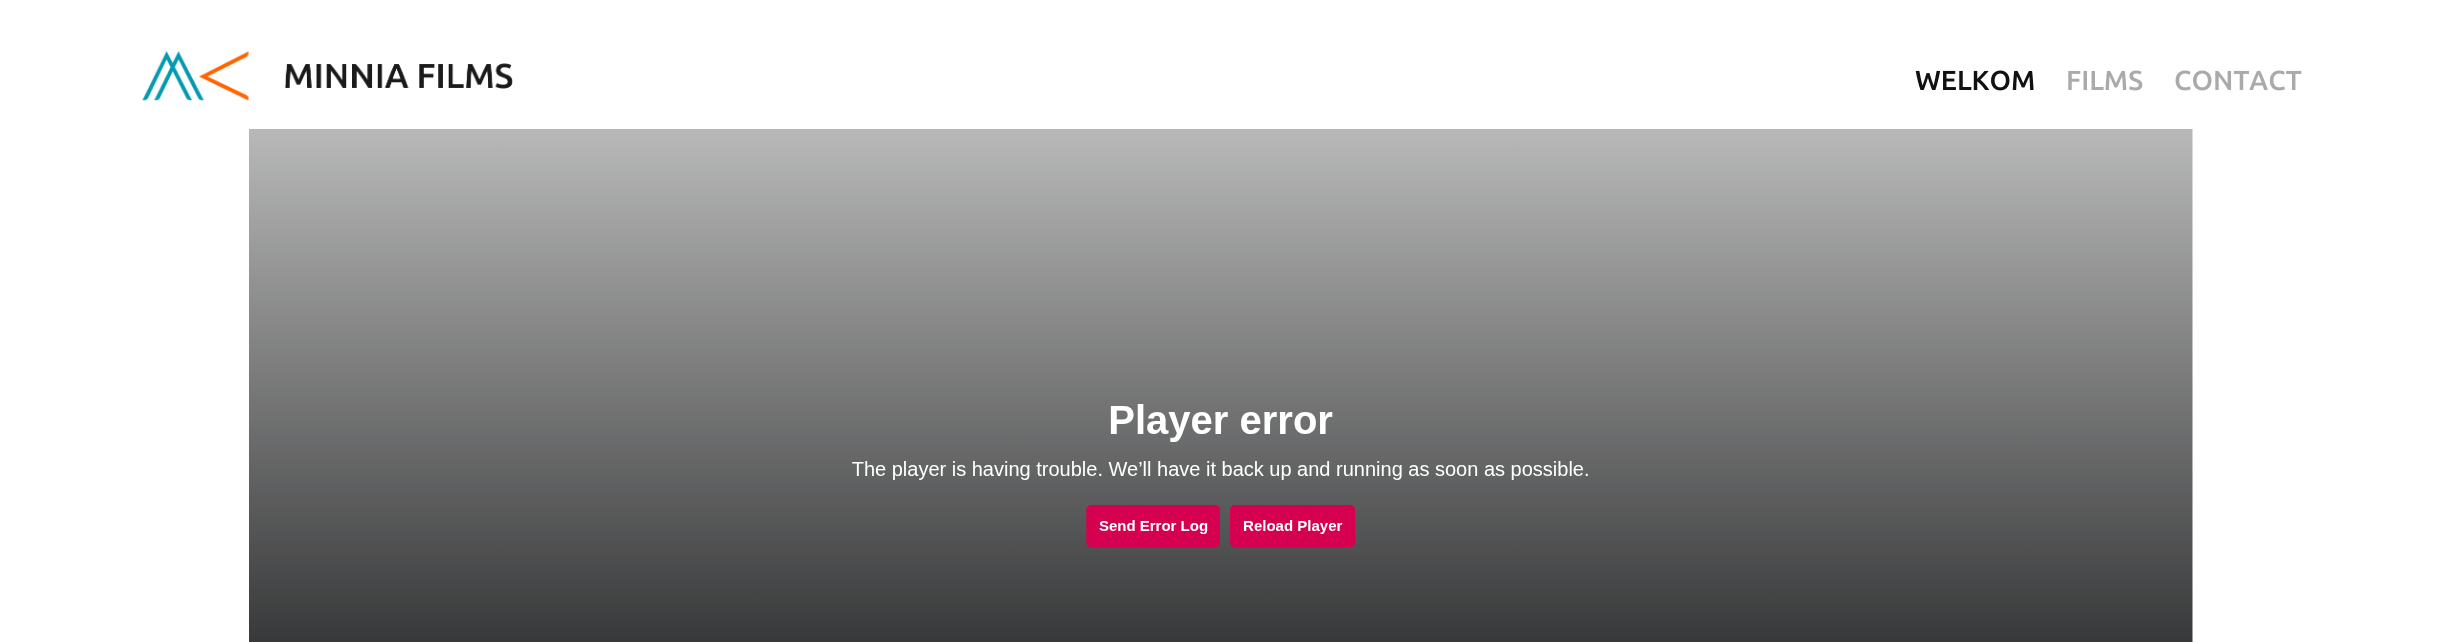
import math
import cairocffi as cairo

surface = cairo.ImageSurface(cairo.FORMAT_RGB24, 2442, 642)
ctx = cairo.Context(surface)
options = cairo.FontOptions()
options.set_hint_metrics(cairo.HINT_METRICS_OFF)
options.set_hint_style(cairo.HINT_STYLE_NONE)
ctx.set_font_options(options)
ctx.set_miter_limit(4)


def rgb(r, g, b):
    ctx.set_source_rgb(r / 255, g / 255, b / 255)


def face(family, size, italic, bold):
    ctx.select_font_face(family, cairo.FONT_SLANT_ITALIC if italic else cairo.FONT_SLANT_NORMAL, cairo.FONT_WEIGHT_BOLD if bold else cairo.FONT_WEIGHT_NORMAL)
    ctx.set_font_size(size)


def label(x, y, s):
    ctx.move_to(x, y)
    ctx.show_text(s)


def image(path, x, y, w, h):
    ctx.save()
    ctx.set_source_surface(cairo.ImageSurface.create_from_png(path), x, y)
    ctx.rectangle(x, y, w, h)
    ctx.fill()
    ctx.restore()


rgb(255, 255, 255)
ctx.paint()
image('image0.png', 142, 50, 371, 51)
face('Ubuntu Medium', 27.5, 0, 0)
rgb(17, 17, 17)
label(1915, 90, 'WELKOM')
rgb(170, 170, 170)
label(2066, 90, 'FILMS')
label(2174, 90, 'CONTACT')
image('image1.png', 249, 129, 1944, 513)
surface.write_to_png('render.png')
